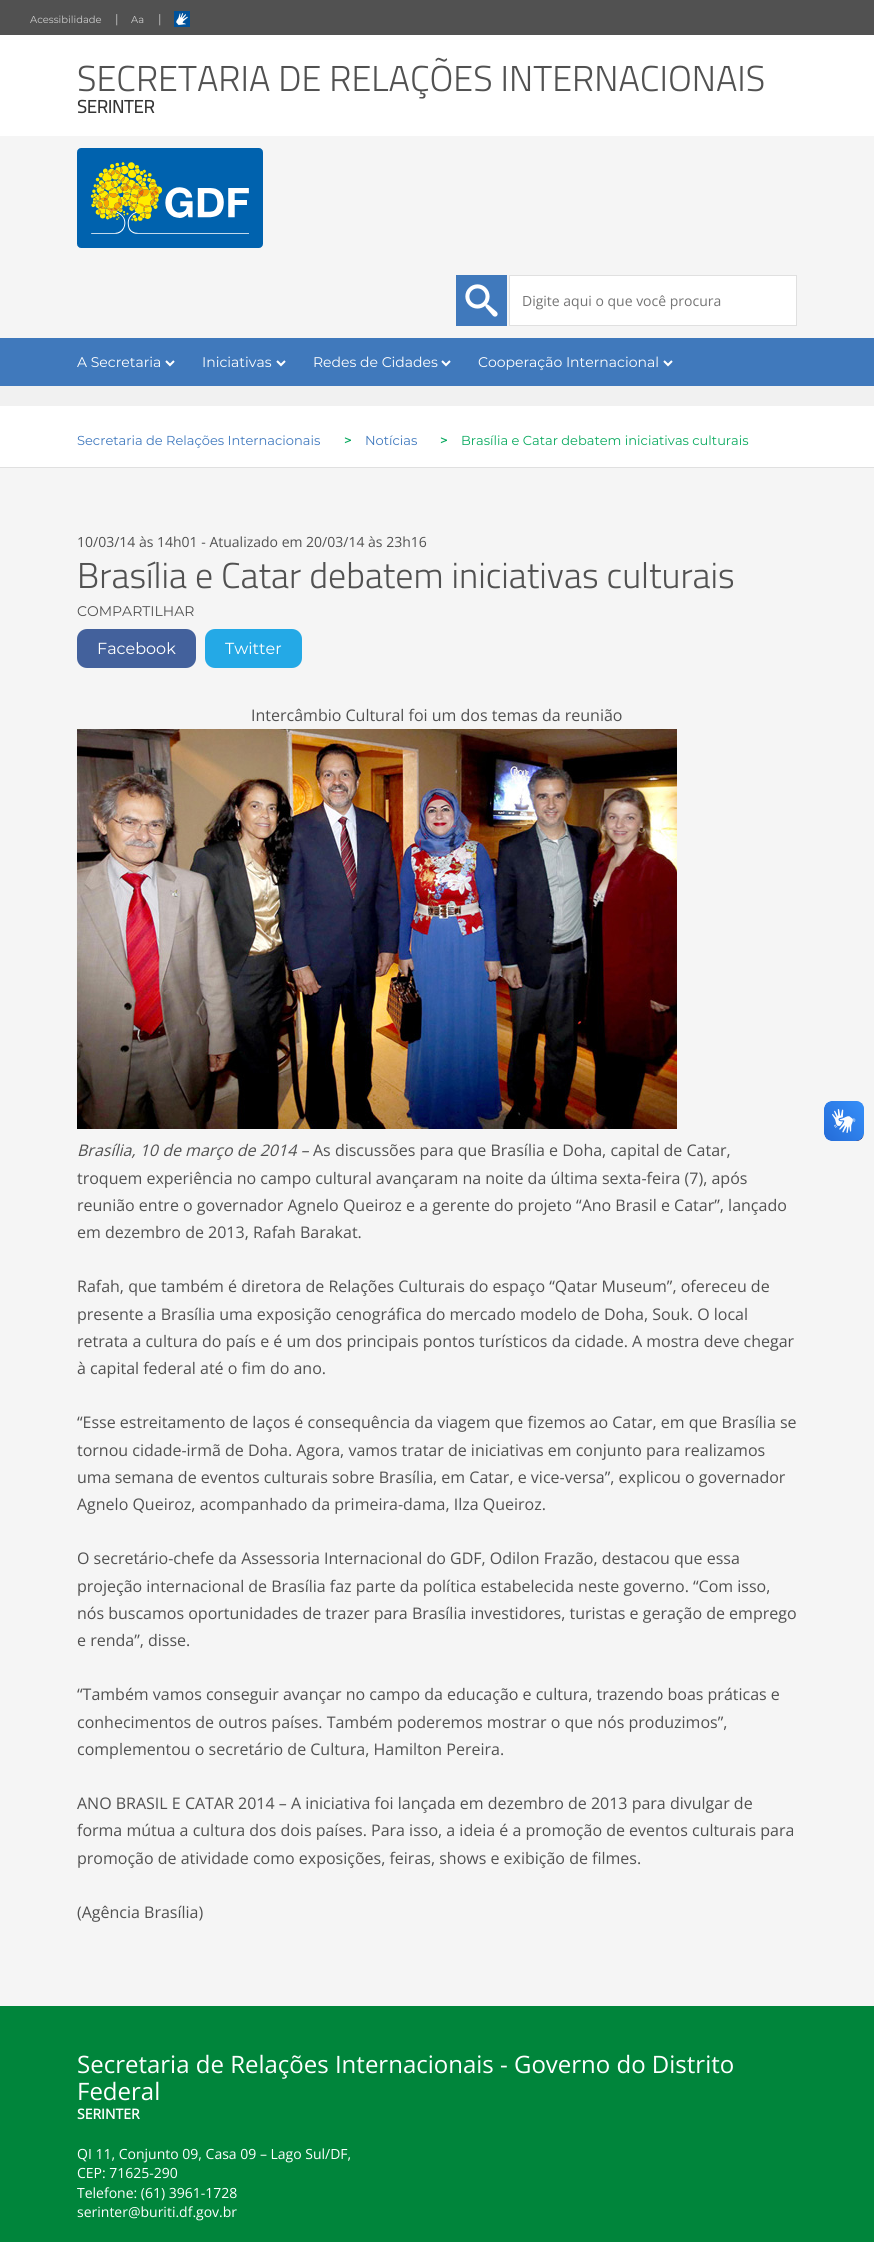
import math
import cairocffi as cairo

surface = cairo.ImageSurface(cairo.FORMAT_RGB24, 874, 2242)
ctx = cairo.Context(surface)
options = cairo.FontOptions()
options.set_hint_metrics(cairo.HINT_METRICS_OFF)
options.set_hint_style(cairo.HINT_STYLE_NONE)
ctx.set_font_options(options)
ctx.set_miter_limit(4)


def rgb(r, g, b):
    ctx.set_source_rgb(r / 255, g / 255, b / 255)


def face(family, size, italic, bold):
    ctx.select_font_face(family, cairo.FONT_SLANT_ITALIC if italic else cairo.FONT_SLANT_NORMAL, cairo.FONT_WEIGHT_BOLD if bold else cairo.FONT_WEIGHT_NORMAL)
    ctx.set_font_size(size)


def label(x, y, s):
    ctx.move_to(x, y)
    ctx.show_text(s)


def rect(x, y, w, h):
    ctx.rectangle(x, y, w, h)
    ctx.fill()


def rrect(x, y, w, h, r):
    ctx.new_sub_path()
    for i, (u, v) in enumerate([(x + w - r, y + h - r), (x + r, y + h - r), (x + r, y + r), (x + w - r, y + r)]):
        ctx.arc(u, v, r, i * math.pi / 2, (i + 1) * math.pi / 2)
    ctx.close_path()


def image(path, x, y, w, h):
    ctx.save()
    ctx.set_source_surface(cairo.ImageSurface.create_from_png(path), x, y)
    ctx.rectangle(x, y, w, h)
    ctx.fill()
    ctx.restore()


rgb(245, 245, 245)
ctx.paint()
rgb(81, 81, 81)
rect(0, 0, 874, 35)
face('Montserrat Thin', 10, 0, 0)
rgb(204, 204, 204)
label(30, 23, 'Acessibilidade')
face('Montserrat Thin', 12, 0, 0)
label(115, 23, '|')
face('Montserrat Thin', 10, 0, 0)
label(131, 23, 'Aa')
face('Montserrat Thin', 12, 0, 0)
label(158, 23, '|')
image('image0.png', 174, 11, 16, 16)
rgb(255, 255, 255)
rect(0, 35, 874, 101)
face('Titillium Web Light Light', 36, 0, 0)
rgb(81, 81, 81)
label(77, 91, 'SECRETARIA DE RELAÇÕES INTERNACIONAIS')
face('Titillium Web Light', 18, 0, 1)
rgb(51, 51, 51)
label(77, 113, 'SERINTER')
image('image1.png', 77, 148, 186, 100)
image('image2.png', 456, 275, 51, 51)
rgb(255, 255, 255)
ctx.rectangle(509.5, 275.5, 287, 50)
ctx.fill_preserve()
rgb(224, 224, 224)
ctx.set_line_width(1)
ctx.stroke()
face('Open Sans', 14, 0, 0)
rgb(117, 117, 117)
label(522, 306, 'Digite aqui o que você procura')
rgb(64, 121, 188)
rect(0, 338, 874, 48)
face('Montserrat Thin', 14, 0, 0)
rgb(255, 255, 255)
label(77, 367, 'A Secretaria')
image('image3.png', 165, 360, 10, 7)
label(202, 367, 'Iniciativas')
image('image3.png', 276, 360, 10, 7)
label(313, 367, 'Redes de Cidades')
image('image3.png', 441, 360, 10, 7)
label(478, 367, 'Cooperação Internacional')
image('image3.png', 663, 360, 10, 7)
rgb(241, 241, 241)
rect(0, 386, 874, 20)
rgb(255, 255, 255)
rect(0, 406, 874, 61)
rgb(224, 224, 224)
rect(0, 467, 874, 1)
face('Montserrat Thin', 13, 0, 0)
rgb(64, 121, 190)
label(77, 445, 'Secretaria de Relações Internacionais')
face('Montserrat', 13, 0, 1)
rgb(10, 170, 96)
label(344, 445, '>')
face('Montserrat Thin', 13, 0, 0)
rgb(64, 121, 190)
label(365, 445, 'Notícias')
face('Montserrat', 13, 0, 1)
rgb(10, 170, 96)
label(440, 445, '>')
face('Montserrat Thin', 13, 0, 0)
label(461, 445, 'Brasília e Catar debatem iniciativas culturais')
face('Open Sans', 14, 0, 0)
rgb(81, 81, 81)
label(77, 547, '10/03/14 às 14h01 - Atualizado em 20/03/14 às 23h16')
face('Titillium Web Light Light', 36, 0, 0)
label(77, 588, 'Brasília e Catar debatem iniciativas culturais')
face('Montserrat Thin', 14, 0, 0)
label(77, 616, 'COMPARTILHAR')
rgb(67, 97, 156)
rrect(77, 629, 119, 39, 10)
ctx.fill()
face('Montserrat Thin', 16, 0, 0)
rgb(255, 255, 255)
label(97, 654, 'Facebook')
rgb(36, 169, 230)
rrect(205, 629, 97, 39, 10)
ctx.fill()
rgb(255, 255, 255)
label(225, 654, 'Twitter')
face('Open Sans', 16, 0, 0)
rgb(81, 81, 81)
label(251, 721, 'Intercâmbio Cultural foi um dos temas da reunião')
image('image4.png', 77, 729, 600, 400)
face('Open Sans', 16, 1, 0)
label(77, 1156, 'Brasília, 10 de março de 2014 –')
face('Open Sans', 16, 0, 0)
label(313, 1156, 'As discussões para que Brasília e Doha, capital de Catar,')
label(77, 1184, 'troquem experiência no campo cultural avançaram na noite da última sexta-feira (7), após')
label(77, 1211, 'reunião entre o governador Agnelo Queiroz e a gerente do projeto “Ano Brasil e Catar”, lançado')
label(77, 1238, 'em dezembro de 2013, Rafah Barakat.')
label(77, 1292, 'Rafah, que também é diretora de Relações Culturais do espaço “Qatar Museum”, ofereceu de')
label(77, 1320, 'presente a Brasília uma exposição cenográfica do mercado modelo de Doha, Souk. O local')
label(77, 1347, 'retrata a cultura do país e é um dos principais pontos turísticos da cidade. A mostra deve chegar')
label(77, 1374, 'à capital federal até o fim do ano.')
label(77, 1428, '“Esse estreitamento de laços é consequência da viagem que fizemos ao Catar, em que Brasília se')
label(77, 1456, 'tornou cidade-irmã de Doha. Agora, vamos tratar de iniciativas em conjunto para realizamos')
label(77, 1483, 'uma semana de eventos culturais sobre Brasília, em Catar, e vice-versa”, explicou o governador')
label(77, 1510, 'Agnelo Queiroz, acompanhado da primeira-dama, Ilza Queiroz.')
label(77, 1564, 'O secretário-chefe da Assessoria Internacional do GDF, Odilon Frazão, destacou que essa')
label(77, 1592, 'projeção internacional de Brasília faz parte da política estabelecida neste governo. “Com isso,')
label(77, 1619, 'nós buscamos oportunidades de trazer para Brasília investidores, turistas e geração de emprego')
label(77, 1646, 'e renda”, disse.')
label(77, 1700, '“Também vamos conseguir avançar no campo da educação e cultura, trazendo boas práticas e')
label(77, 1728, 'conhecimentos de outros países. Também poderemos mostrar o que nós produzimos”,')
label(77, 1755, 'complementou o secretário de Cultura, Hamilton Pereira.')
label(77, 1809, 'ANO BRASIL E CATAR 2014 – A iniciativa foi lançada em dezembro de 2013 para divulgar de')
label(77, 1836, 'forma mútua a cultura dos dois países. Para isso, a ideia é a promoção de eventos culturais para')
label(77, 1864, 'promoção de atividade como exposições, feiras, shows e exibição de filmes.')
label(77, 1918, '(Agência Brasília)')
image('image5.png', 824, 1101, 40, 40)
image('image6.png', 824, 1101, 40, 40)
rgb(0, 133, 59)
rect(0, 2006, 874, 236)
face('Open Sans', 24, 0, 0)
rgb(255, 255, 255)
label(77, 2073, 'Secretaria de Relações Internacionais - Governo do Distrito')
label(77, 2100, 'Federal')
face('Open Sans', 14, 0, 1)
label(77, 2119, 'SERINTER')
face('Open Sans', 14, 0, 0)
label(77, 2159, 'QI 11, Conjunto 09, Casa 09 – Lago Sul/DF,')
label(77, 2178, 'CEP: 71625-290')
label(77, 2198, 'Telefone: (61) 3961-1728')
label(77, 2217, 'serinter@buriti.df.gov.br')
surface.write_to_png('render.png')
